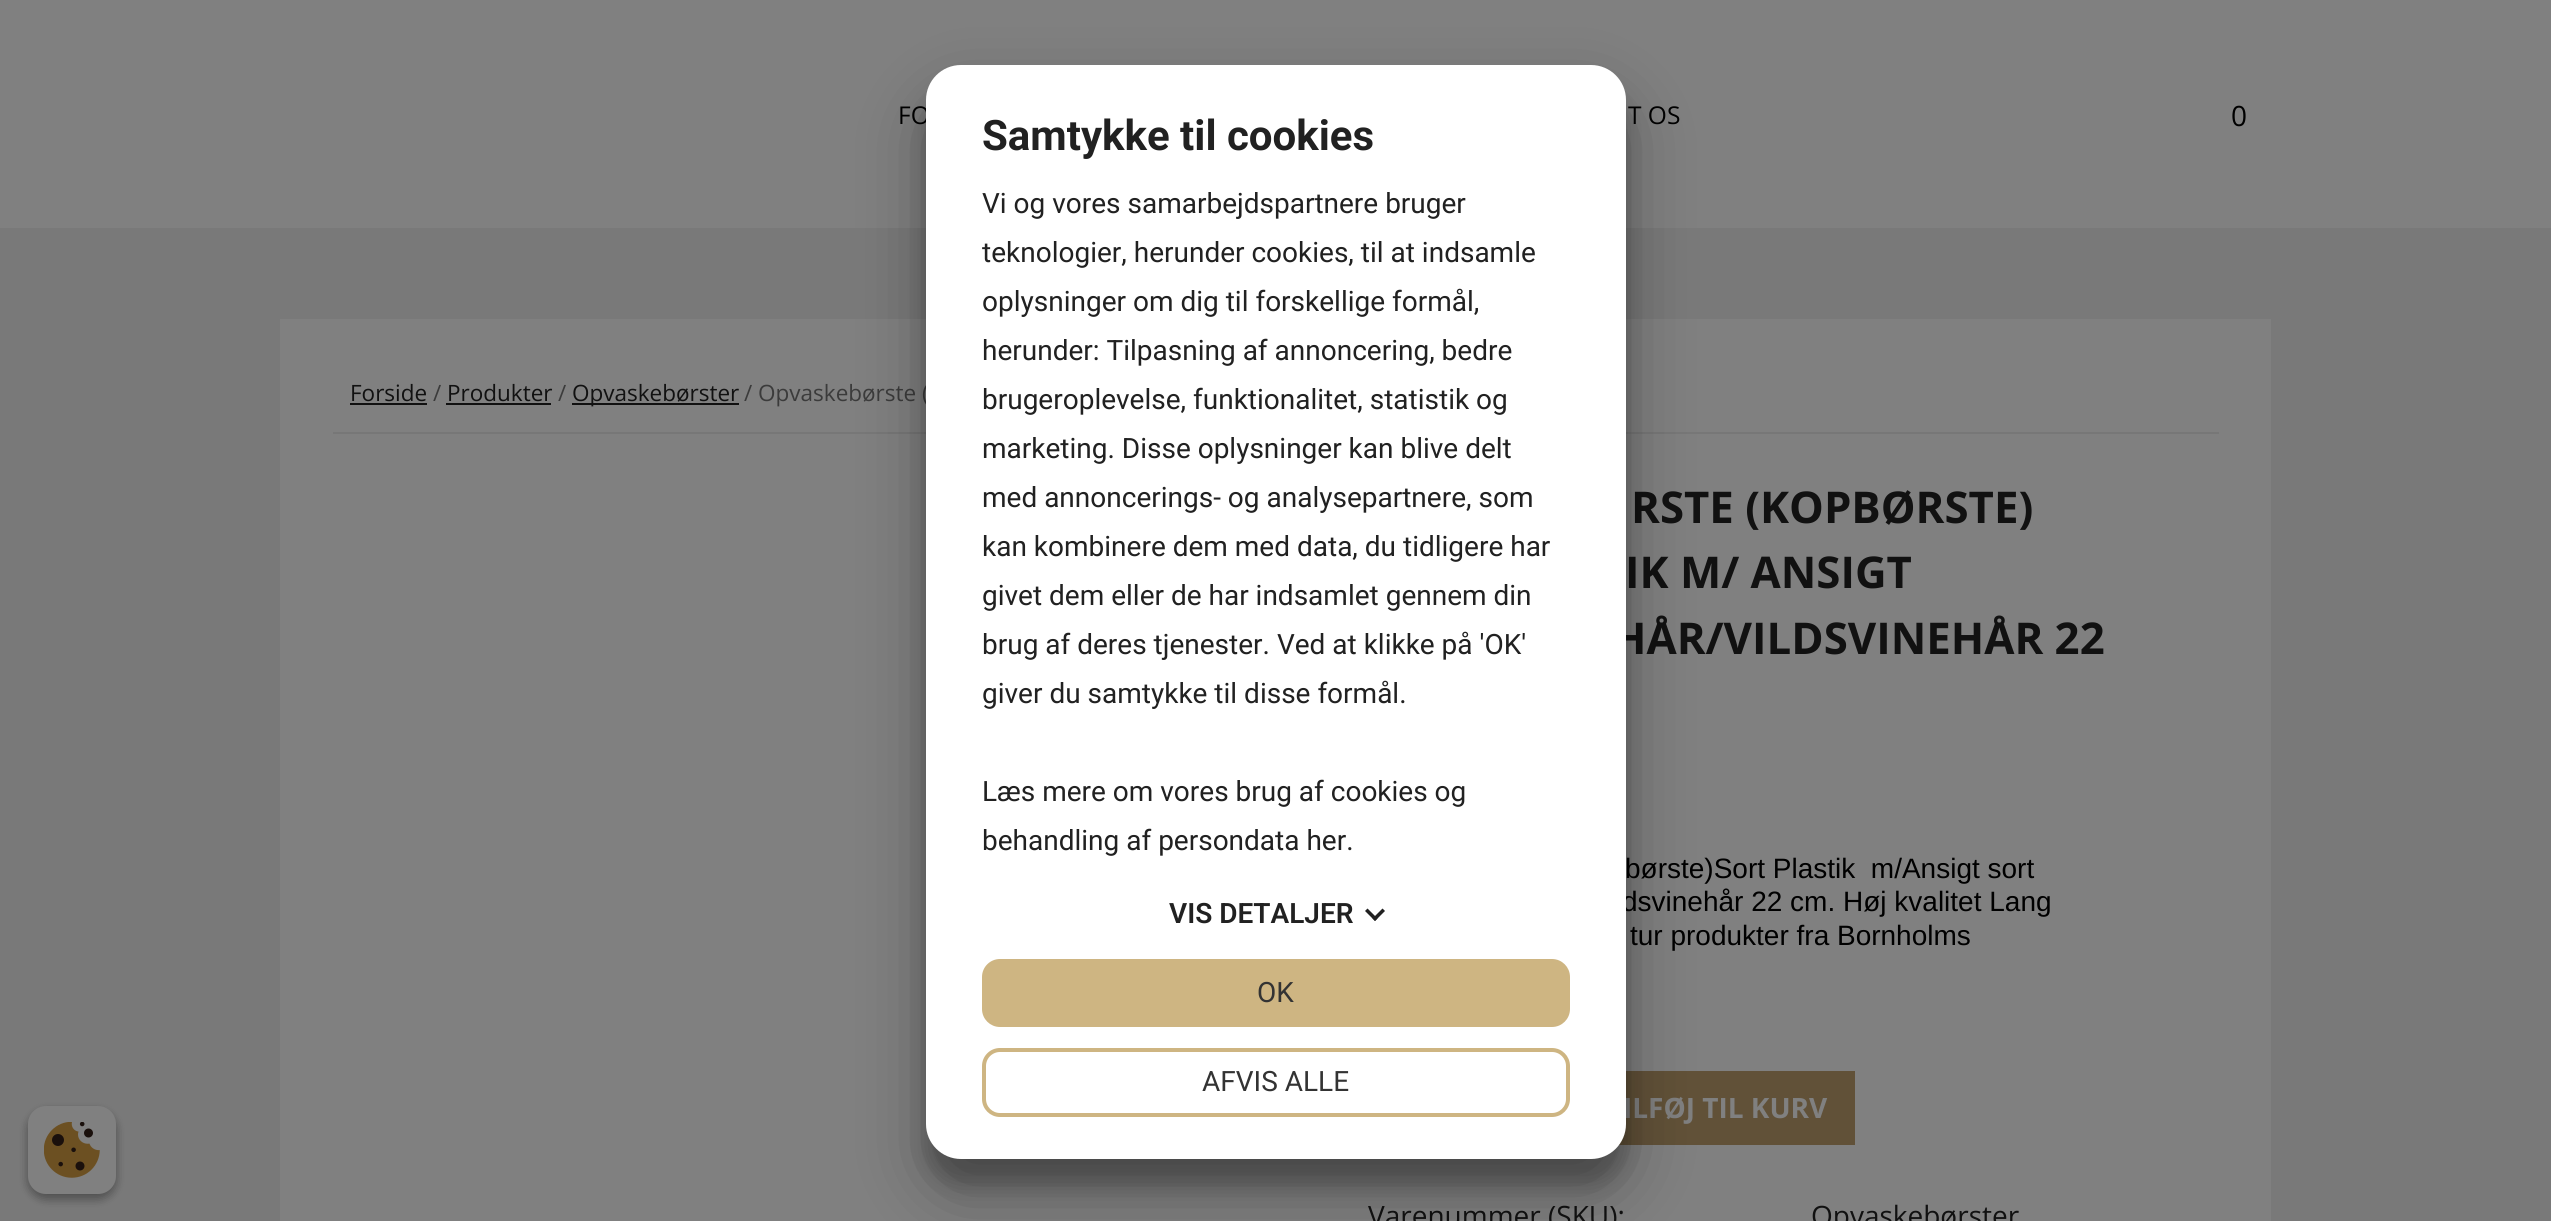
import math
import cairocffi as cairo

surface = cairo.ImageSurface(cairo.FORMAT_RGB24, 2551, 1221)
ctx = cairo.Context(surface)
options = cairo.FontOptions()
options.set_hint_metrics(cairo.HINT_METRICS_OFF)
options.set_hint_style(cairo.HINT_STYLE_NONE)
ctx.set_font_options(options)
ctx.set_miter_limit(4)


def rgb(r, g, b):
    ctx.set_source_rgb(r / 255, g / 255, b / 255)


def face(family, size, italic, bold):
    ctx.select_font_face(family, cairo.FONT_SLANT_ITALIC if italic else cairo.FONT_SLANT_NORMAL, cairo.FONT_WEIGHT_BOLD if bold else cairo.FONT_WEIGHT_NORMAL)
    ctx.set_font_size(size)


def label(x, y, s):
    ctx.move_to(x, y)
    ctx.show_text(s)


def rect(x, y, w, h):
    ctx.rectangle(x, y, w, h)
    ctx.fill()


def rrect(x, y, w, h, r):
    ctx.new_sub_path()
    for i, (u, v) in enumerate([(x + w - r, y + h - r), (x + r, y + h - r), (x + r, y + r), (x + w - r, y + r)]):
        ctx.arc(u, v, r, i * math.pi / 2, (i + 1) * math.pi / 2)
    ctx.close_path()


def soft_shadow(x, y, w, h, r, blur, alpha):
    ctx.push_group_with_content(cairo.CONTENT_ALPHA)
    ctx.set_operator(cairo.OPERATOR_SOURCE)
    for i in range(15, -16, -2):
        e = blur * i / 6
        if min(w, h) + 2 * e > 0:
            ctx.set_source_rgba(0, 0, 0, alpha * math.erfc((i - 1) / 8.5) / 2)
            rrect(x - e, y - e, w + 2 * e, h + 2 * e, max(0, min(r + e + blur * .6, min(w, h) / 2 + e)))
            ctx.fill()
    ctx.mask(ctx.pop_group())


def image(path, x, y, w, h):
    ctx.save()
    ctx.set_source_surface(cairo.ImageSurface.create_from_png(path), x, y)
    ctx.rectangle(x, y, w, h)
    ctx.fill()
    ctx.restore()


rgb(121, 121, 121)
ctx.paint()
rgb(128, 128, 128)
rect(0, 0, 2551, 228)
face('Open Sans', 24.5, 0, 0)
rgb(0, 0, 0)
label(898, 124, 'FO')
label(1628, 124, 'T OS')
face('Open Sans', 28, 0, 0)
label(2231, 126, '0')
rgb(128, 128, 128)
rect(280, 319, 1991, 902)
rgb(119, 119, 119)
rect(333, 432, 1886, 2)
face('Open Sans', 22.5, 0, 0)
rgb(17, 17, 17)
label(350, 401, 'Forside')
rect(350, 403, 77, 2)
rgb(59, 59, 59)
label(433, 401, '/')
rgb(17, 17, 17)
label(447, 401, 'Produkter')
rect(446, 403, 105, 2)
rgb(59, 59, 59)
label(558, 401, '/')
rgb(17, 17, 17)
rect(572, 403, 167, 2)
label(572, 401, 'Opvaskebørster')
rgb(59, 59, 59)
label(744, 401, '/ Opvaskebørste (')
face('Open Sans', 43.75, 0, 1)
rgb(17, 17, 17)
label(1631, 523, 'RSTE (KOPBØRSTE)')
label(1625, 588, 'IK M/ ANSIGT')
label(1613, 654, 'HÅR/VILDSVINEHÅR 22')
face('Liberation Sans', 28, 0, 0)
rgb(0, 0, 0)
label(1625, 878, 'børste)Sort Plastik  m/Ansigt sort')
label(1622, 911, 'dsvinehår 22 cm. Høj kvalitet Lang')
label(1630, 945, 'tur produkter fra Bornholms')
rgb(97, 81, 56)
rect(1619, 1071, 236, 74)
face('Open Sans', 28, 0, 1)
rgb(128, 128, 128)
label(1623, 1118, 'ILFØJ TIL KURV')
face('Open Sans', 28, 0, 0)
rgb(17, 17, 17)
label(1368, 1226, 'Varenummer (SKU):')
label(1811, 1226, 'Opvaskebørster')
rgb(0, 0, 0)
soft_shadow(926, 91, 700, 1094, 35, 10.5, 0.22)
soft_shadow(926, 98, 700, 1094, 35, 33, 0.3)
rgb(255, 255, 255)
rrect(926, 65, 700, 1094, 35)
ctx.fill()
face('Roboto', 42, 0, 1)
rgb(33, 33, 33)
label(982, 150, 'Samtykke til cookies')
face('Roboto', 28, 0, 0)
label(982, 213, 'Vi og vores samarbejdspartnere bruger')
label(982, 262, 'teknologier, herunder cookies, til at indsamle')
label(982, 311, 'oplysninger om dig til forskellige formål,')
label(982, 360, 'herunder: Tilpasning af annoncering, bedre')
label(982, 409, 'brugeroplevelse, funktionalitet, statistik og')
label(982, 458, 'marketing. Disse oplysninger kan blive delt')
label(982, 507, 'med annoncerings- og analysepartnere, som')
label(982, 556, 'kan kombinere dem med data, du tidligere har')
label(982, 605, 'givet dem eller de har indsamlet gennem din')
label(982, 654, 'brug af deres tjenester. Ved at klikke på \'OK\'')
label(982, 703, 'giver du samtykke til disse formål.')
label(982, 801, 'Læs mere om vores brug af cookies og')
label(982, 850, 'behandling af persondata her.')
face('Roboto SemiBold', 28, 0, 0)
label(1169, 923, 'VIS DETALJER')
ctx.new_path()
ctx.move_to(1382.5, 908.5)
ctx.line_to(1385, 911)
ctx.line_to(1375, 921)
ctx.line_to(1372.5, 918.5)
ctx.close_path()
ctx.fill()
ctx.new_path()
ctx.move_to(1367.5, 908.5)
ctx.line_to(1377.5, 918.5)
ctx.line_to(1375, 921)
ctx.line_to(1365, 911)
ctx.close_path()
ctx.fill()
rgb(206, 181, 130)
rrect(984, 961, 584, 64, 16)
ctx.fill_preserve()
ctx.set_line_width(4)
ctx.stroke()
face('Roboto', 28, 0, 0)
rgb(51, 51, 51)
label(1257, 1002, 'OK')
rrect(984, 1050, 584, 65, 16)
rgb(206, 181, 130)
ctx.stroke()
rgb(51, 51, 51)
label(1202, 1091, 'AFVIS ALLE')
rgb(0, 0, 0)
soft_shadow(28, 1111, 88, 88, 18, 5, 0.23)
soft_shadow(28, 1111, 88, 88, 18, 5, 0.16)
rgb(128, 128, 128)
rrect(28, 1106, 88, 88, 18)
ctx.fill()
image('image0.png', 44, 1122, 56, 56)
surface.write_to_png('render.png')
